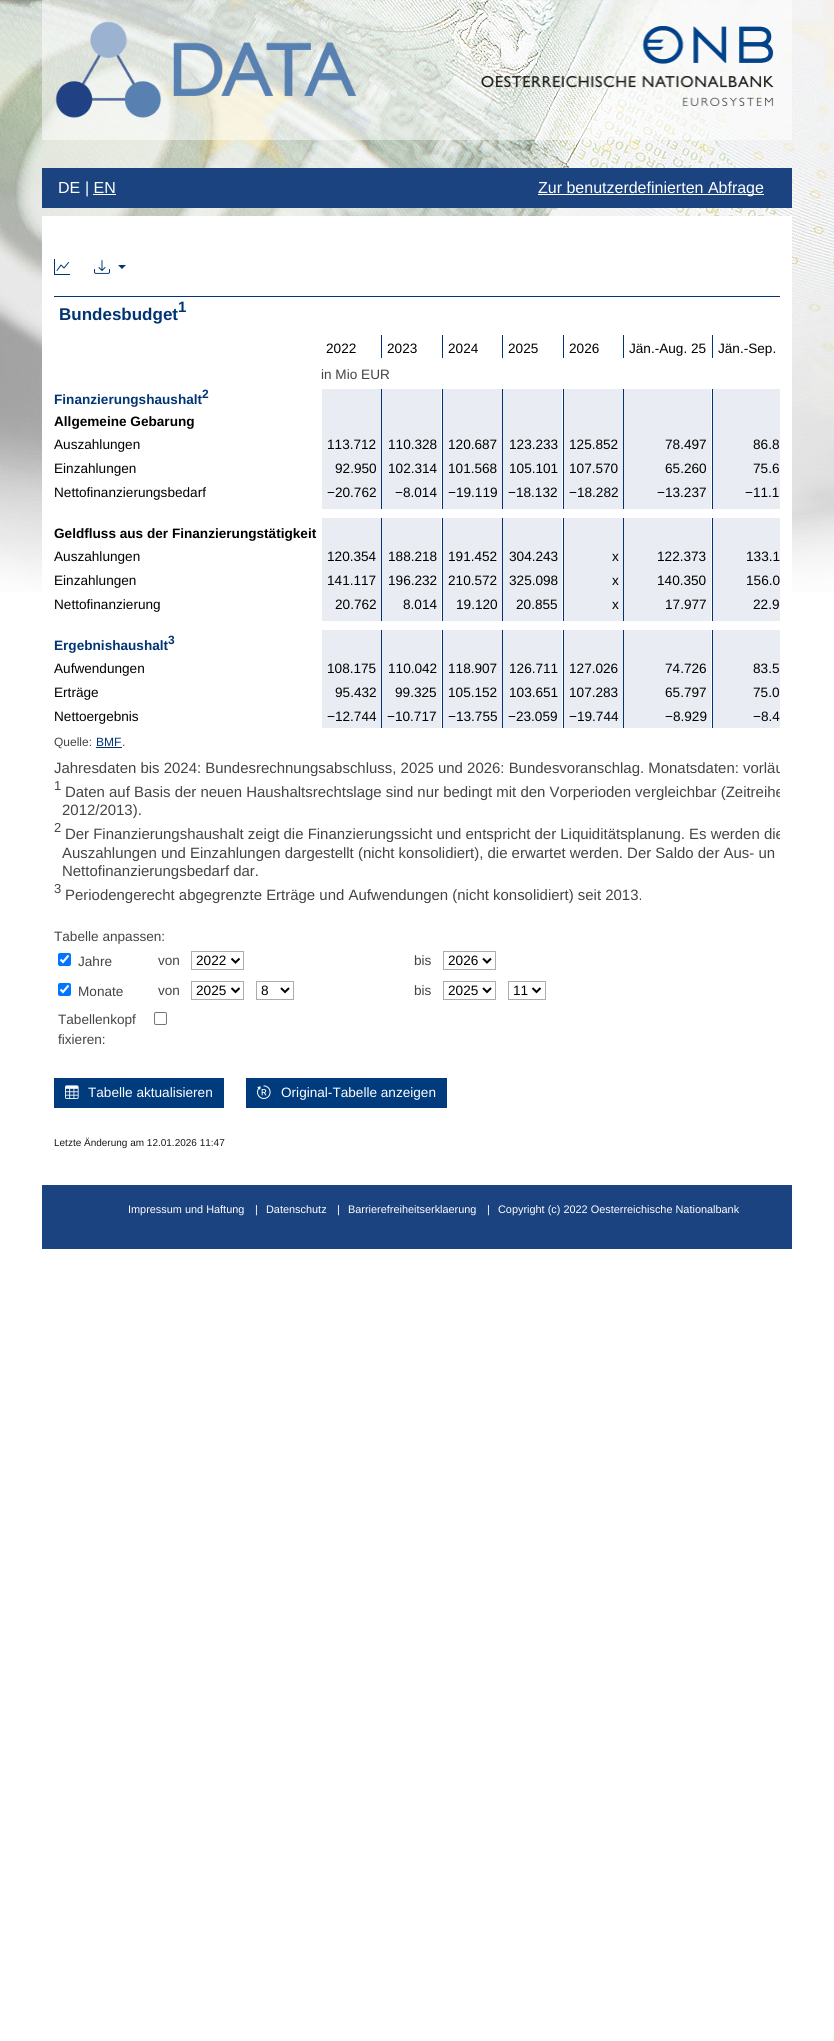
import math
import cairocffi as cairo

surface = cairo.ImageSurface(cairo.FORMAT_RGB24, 834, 2041)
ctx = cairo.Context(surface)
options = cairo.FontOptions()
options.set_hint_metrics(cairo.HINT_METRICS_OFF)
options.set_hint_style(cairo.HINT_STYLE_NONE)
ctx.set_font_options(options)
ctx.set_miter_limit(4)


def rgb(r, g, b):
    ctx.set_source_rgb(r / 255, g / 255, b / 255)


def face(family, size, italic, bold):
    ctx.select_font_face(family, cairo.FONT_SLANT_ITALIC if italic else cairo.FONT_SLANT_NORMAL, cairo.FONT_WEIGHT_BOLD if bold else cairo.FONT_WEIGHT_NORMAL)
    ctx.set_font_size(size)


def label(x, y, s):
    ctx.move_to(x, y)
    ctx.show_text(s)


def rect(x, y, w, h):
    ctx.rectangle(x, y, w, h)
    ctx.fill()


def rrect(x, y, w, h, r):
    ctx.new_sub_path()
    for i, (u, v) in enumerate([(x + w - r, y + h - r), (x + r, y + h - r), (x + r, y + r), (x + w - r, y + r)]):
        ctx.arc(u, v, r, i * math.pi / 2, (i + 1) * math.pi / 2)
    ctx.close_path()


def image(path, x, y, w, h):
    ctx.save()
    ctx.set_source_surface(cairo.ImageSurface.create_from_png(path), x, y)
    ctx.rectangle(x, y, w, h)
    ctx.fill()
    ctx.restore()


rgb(255, 255, 255)
ctx.paint()
image('image0.png', 0, 0, 834, 592)
ctx.set_source_rgba(1, 1, 1, 0.5)
rect(42, 0, 750, 140)
image('image1.png', 55, 21, 301, 97)
image('image2.png', 481, 26, 293, 80)
rgb(27, 67, 128)
rect(42, 168, 750, 40)
face('Liberation Sans', 16, 0, 0)
rgb(255, 255, 255)
label(58, 193, 'DE')
label(85, 193, '| EN')
rect(93, 194, 23, 1)
rect(538, 194, 226, 1)
label(538, 193, 'Zur benutzerdefinierten Abfrage')
rect(42, 216, 750, 376)
image('image3.png', 54, 259, 16, 16)
image('image4.png', 94, 260, 16, 14)
rgb(1, 52, 115)
ctx.new_path()
ctx.move_to(118, 265)
ctx.line_to(126, 265)
ctx.line_to(122, 269)
ctx.close_path()
ctx.fill()
rect(54, 296, 726, 1)
face('Liberation Sans', 17, 0, 1)
label(59, 320, 'Bundesbudget')
face('Liberation Sans', 15, 0, 1)
label(178, 312, '1')
rect(381, 335, 1, 23)
face('Liberation Sans', 13.6, 0, 0)
rgb(0, 0, 0)
label(326, 353, '2022')
rgb(1, 52, 115)
rect(442, 335, 1, 23)
rgb(0, 0, 0)
label(387, 353, '2023')
rgb(1, 52, 115)
rect(502, 335, 1, 23)
rgb(0, 0, 0)
label(448, 353, '2024')
rgb(1, 52, 115)
rect(563, 335, 1, 23)
rgb(0, 0, 0)
label(508, 353, '2025')
rgb(1, 52, 115)
rect(623, 335, 1, 23)
rgb(0, 0, 0)
label(569, 353, '2026')
rgb(1, 52, 115)
rect(712, 335, 1, 23)
rgb(0, 0, 0)
label(629, 353, 'Jän.-Aug. 25')
label(718, 353, 'Jän.-Sep.')
rgb(68, 68, 68)
label(321, 379, 'in Mio EUR')
face('Liberation Sans', 13.6, 0, 1)
rgb(1, 52, 115)
label(54, 404, 'Finanzierungshaushalt')
face('Liberation Sans', 12, 0, 1)
label(202, 398, '2')
rgb(233, 236, 243)
rect(322, 389, 59, 115)
rect(382, 389, 59, 120)
rect(443, 389, 59, 115)
rect(503, 389, 59, 120)
rect(564, 389, 59, 115)
rect(624, 389, 87, 120)
rect(713, 389, 67, 115)
rect(321, 504, 60, 5)
rgb(1, 52, 115)
rect(381, 389, 1, 120)
rgb(233, 236, 243)
rect(442, 504, 60, 5)
rgb(1, 52, 115)
rect(502, 389, 1, 120)
rgb(233, 236, 243)
rect(442, 616, 60, 5)
rect(442, 518, 60, 5)
rect(442, 630, 60, 5)
rgb(1, 52, 115)
rect(442, 629, 1, 99)
rgb(255, 255, 255)
rect(442, 620, 1, 10)
rgb(1, 52, 115)
rect(442, 517, 1, 104)
rgb(255, 255, 255)
rect(442, 508, 1, 10)
rgb(1, 52, 115)
rect(442, 389, 1, 120)
rgb(233, 236, 243)
rect(563, 504, 60, 5)
rgb(1, 52, 115)
rect(623, 389, 1, 120)
rgb(233, 236, 243)
rect(563, 616, 60, 5)
rect(563, 518, 60, 5)
rect(563, 630, 60, 5)
rgb(1, 52, 115)
rect(563, 629, 1, 99)
rgb(255, 255, 255)
rect(563, 620, 1, 10)
rgb(1, 52, 115)
rect(563, 517, 1, 104)
rgb(255, 255, 255)
rect(563, 508, 1, 10)
rgb(1, 52, 115)
rect(563, 389, 1, 120)
rgb(233, 236, 243)
rect(712, 504, 68, 5)
rect(712, 616, 68, 5)
rect(712, 518, 68, 5)
rect(712, 630, 68, 5)
rgb(1, 52, 115)
rect(712, 629, 1, 99)
rgb(255, 255, 255)
rect(712, 620, 1, 10)
rgb(1, 52, 115)
rect(712, 517, 1, 104)
rgb(255, 255, 255)
rect(712, 508, 1, 10)
rgb(1, 52, 115)
rect(712, 389, 1, 120)
face('Liberation Sans', 13.6, 0, 1)
rgb(0, 0, 0)
label(54, 426, 'Allgemeine Gebarung')
face('Liberation Sans', 13.6, 0, 0)
label(54, 449, 'Auszahlungen')
label(327, 449, '113.712')
label(388, 449, '110.328')
label(448, 449, '120.687')
label(509, 449, '123.233')
label(569, 449, '125.852')
label(665, 449, '78.497')
label(753, 449, '86.8')
label(54, 473, 'Einzahlungen')
label(335, 473, '92.950')
label(388, 473, '102.314')
label(448, 473, '101.568')
label(509, 473, '105.101')
label(569, 473, '107.570')
label(665, 473, '65.260')
label(753, 473, '75.6')
label(54, 497, 'Nettofinanzierungsbedarf')
label(327, 497, '−20.762')
label(395, 497, '−8.014')
label(448, 497, '−19.119')
label(508, 497, '−18.132')
label(569, 497, '−18.282')
label(657, 497, '−13.237')
label(745, 497, '−11.1')
rgb(255, 255, 255)
rect(321, 503, 1, 6)
rgb(1, 52, 115)
rect(381, 517, 1, 104)
rgb(255, 255, 255)
rect(381, 517, 1, 1)
rgb(1, 52, 115)
rect(502, 517, 1, 104)
rgb(255, 255, 255)
rect(502, 517, 1, 1)
rgb(1, 52, 115)
rect(623, 517, 1, 104)
rgb(255, 255, 255)
rect(623, 517, 1, 1)
rgb(233, 236, 243)
rect(321, 616, 60, 5)
rect(321, 518, 60, 5)
rgb(255, 255, 255)
rect(321, 517, 1, 6)
face('Liberation Sans', 13.6, 0, 1)
rgb(0, 0, 0)
label(54, 538, 'Geldfluss aus der Finanzierungstätigkeit')
rgb(233, 236, 243)
rect(322, 523, 59, 93)
rect(443, 523, 59, 93)
rect(564, 523, 59, 93)
rect(713, 523, 67, 93)
rect(382, 518, 59, 103)
rect(503, 518, 59, 103)
rect(624, 518, 87, 103)
face('Liberation Sans', 13.6, 0, 0)
rgb(0, 0, 0)
label(54, 561, 'Auszahlungen')
label(327, 561, '120.354')
label(388, 561, '188.218')
label(448, 561, '191.452')
label(509, 561, '304.243')
label(612, 561, 'x')
label(657, 561, '122.373')
label(746, 561, '133.1')
label(54, 585, 'Einzahlungen')
label(327, 585, '141.117')
label(388, 585, '196.232')
label(448, 585, '210.572')
label(509, 585, '325.098')
label(612, 585, 'x')
label(657, 585, '140.350')
label(746, 585, '156.0')
label(54, 609, 'Nettofinanzierung')
label(335, 609, '20.762')
label(403, 609, '8.014')
label(456, 609, '19.120')
label(516, 609, '20.855')
label(612, 609, 'x')
label(665, 609, '17.977')
label(753, 609, '22.9')
rgb(255, 255, 255)
rect(321, 615, 1, 6)
rgb(1, 52, 115)
rect(381, 629, 1, 99)
rgb(255, 255, 255)
rect(381, 629, 1, 1)
rgb(1, 52, 115)
rect(502, 629, 1, 99)
rgb(255, 255, 255)
rect(502, 629, 1, 1)
rgb(1, 52, 115)
rect(623, 629, 1, 99)
rgb(255, 255, 255)
rect(623, 629, 1, 1)
rgb(233, 236, 243)
rect(321, 630, 60, 5)
rgb(255, 255, 255)
rect(321, 629, 1, 6)
face('Liberation Sans', 13.6, 0, 1)
rgb(1, 52, 115)
label(54, 650, 'Ergebnishaushalt')
face('Liberation Sans', 12, 0, 1)
label(168, 644, '3')
rgb(233, 236, 243)
rect(322, 635, 59, 93)
rect(443, 635, 59, 93)
rect(564, 635, 59, 93)
rect(713, 635, 67, 93)
rect(382, 630, 59, 98)
rect(503, 630, 59, 98)
rect(624, 630, 87, 98)
face('Liberation Sans', 13.6, 0, 0)
rgb(0, 0, 0)
label(54, 673, 'Aufwendungen')
label(327, 673, '108.175')
label(388, 673, '110.042')
label(448, 673, '118.907')
label(509, 673, '126.711')
label(569, 673, '127.026')
label(665, 673, '74.726')
label(753, 673, '83.5')
label(54, 697, 'Erträge')
label(335, 697, '95.432')
label(395, 697, '99.325')
label(448, 697, '105.152')
label(509, 697, '103.651')
label(569, 697, '107.283')
label(665, 697, '65.797')
label(753, 697, '75.0')
label(54, 721, 'Nettoergebnis')
label(327, 721, '−12.744')
label(387, 721, '−10.717')
label(448, 721, '−13.755')
label(508, 721, '−23.059')
label(569, 721, '−19.744')
label(665, 721, '−8.929')
label(753, 721, '−8.4')
face('Liberation Sans', 12, 0, 0)
rgb(68, 68, 68)
label(54, 746, 'Quelle:')
rgb(1, 52, 115)
label(96, 746, 'BMF')
rgb(68, 68, 68)
label(122, 746, '.')
rgb(1, 52, 115)
rect(96, 747, 26, 1)
ctx.save()
ctx.rectangle(54, 288, 726, 639)
ctx.clip()
face('Liberation Sans', 14.95, 0, 0)
rgb(68, 68, 68)
label(54, 773, 'Jahresdaten bis 2024: Bundesrechnungsabschluss, 2025 und 2026: Bundesvoranschlag. Monatsdaten: vorläu')
ctx.restore()
face('Liberation Sans', 13, 0, 0)
rgb(68, 68, 68)
label(54, 790, '1')
ctx.save()
ctx.rectangle(54, 288, 726, 639)
ctx.clip()
face('Liberation Sans', 14.95, 0, 0)
label(65, 797, 'Daten auf Basis der neuen Haushaltsrechtslage sind nur bedingt mit den Vorperioden vergleichbar (Zeitreihe')
ctx.restore()
face('Liberation Sans', 14.95, 0, 0)
label(62, 815, '2012/2013).')
face('Liberation Sans', 13, 0, 0)
label(54, 832, '2')
ctx.save()
ctx.rectangle(54, 288, 726, 639)
ctx.clip()
face('Liberation Sans', 14.95, 0, 0)
label(65, 839, 'Der Finanzierungshaushalt zeigt die Finanzierungssicht und entspricht der Liquiditätsplanung. Es werden die')
ctx.restore()
face('Liberation Sans', 14.95, 0, 0)
label(62, 858, 'Auszahlungen und Einzahlungen dargestellt (nicht konsolidiert), die erwartet werden. Der Saldo der Aus- un')
label(62, 876, 'Nettofinanzierungsbedarf dar.')
face('Liberation Sans', 13, 0, 0)
label(54, 893, '3')
face('Liberation Sans', 14.95, 0, 0)
label(65, 900, 'Periodengerecht abgegrenzte Erträge und Aufwendungen (nicht konsolidiert) seit 2013.')
face('Liberation Sans', 13.6, 0, 0)
label(54, 941, 'Tabelle anpassen:')
rgb(0, 117, 255)
rrect(58, 953, 13, 13, 2)
ctx.fill()
ctx.new_path()
ctx.move_to(60.5, 959.5)
ctx.line_to(63, 962)
ctx.line_to(68.5, 955.5)
rgb(255, 255, 255)
ctx.set_line_width(2.1)
ctx.stroke()
rgb(68, 68, 68)
label(78, 966, 'Jahre')
label(158, 965, 'von')
ctx.rectangle(191.5, 951.5, 52, 18)
rgb(172, 172, 172)
ctx.set_line_width(1)
ctx.stroke()
ctx.new_path()
ctx.move_to(231.5, 958.5)
ctx.line_to(235.5, 962.5)
ctx.line_to(239.5, 958.5)
rgb(0, 0, 0)
ctx.set_line_width(2)
ctx.stroke()
label(196, 965, '2022')
rgb(68, 68, 68)
label(414, 965, 'bis')
ctx.rectangle(443.5, 951.5, 52, 18)
rgb(172, 172, 172)
ctx.set_line_width(1)
ctx.stroke()
ctx.new_path()
ctx.move_to(483, 958.5)
ctx.line_to(487, 962.5)
ctx.line_to(491, 958.5)
rgb(0, 0, 0)
ctx.set_line_width(2)
ctx.stroke()
label(448, 965, '2026')
rgb(0, 117, 255)
rrect(58, 983, 13, 13, 2)
ctx.fill()
ctx.new_path()
ctx.move_to(60.5, 989.5)
ctx.line_to(63, 992)
ctx.line_to(68.5, 985.5)
rgb(255, 255, 255)
ctx.set_line_width(2.1)
ctx.stroke()
rgb(68, 68, 68)
label(78, 996, 'Monate')
label(158, 995, 'von')
ctx.rectangle(191.5, 981.5, 52, 18)
rgb(172, 172, 172)
ctx.set_line_width(1)
ctx.stroke()
ctx.new_path()
ctx.move_to(231.5, 988)
ctx.line_to(235.5, 992)
ctx.line_to(239.5, 988)
rgb(0, 0, 0)
ctx.set_line_width(2)
ctx.stroke()
label(196, 995, '2025')
ctx.rectangle(256.5, 981.5, 37, 18)
rgb(172, 172, 172)
ctx.set_line_width(1)
ctx.stroke()
ctx.new_path()
ctx.move_to(281, 988)
ctx.line_to(285, 992)
ctx.line_to(289, 988)
rgb(0, 0, 0)
ctx.set_line_width(2)
ctx.stroke()
label(261, 995, '8')
rgb(68, 68, 68)
label(414, 995, 'bis')
ctx.rectangle(443.5, 981.5, 52, 18)
rgb(172, 172, 172)
ctx.set_line_width(1)
ctx.stroke()
ctx.new_path()
ctx.move_to(483, 988)
ctx.line_to(487, 992)
ctx.line_to(491, 988)
rgb(0, 0, 0)
ctx.set_line_width(2)
ctx.stroke()
label(448, 995, '2025')
ctx.rectangle(508.5, 981.5, 37, 18)
rgb(172, 172, 172)
ctx.set_line_width(1)
ctx.stroke()
ctx.new_path()
ctx.move_to(532.5, 988)
ctx.line_to(536.5, 992)
ctx.line_to(540.5, 988)
rgb(0, 0, 0)
ctx.set_line_width(2)
ctx.stroke()
label(513, 995, '11')
rgb(68, 68, 68)
label(58, 1024, 'Tabellenkopf')
label(58, 1044, 'fixieren:')
rrect(154.5, 1012.5, 12, 12, 1.5)
rgb(118, 118, 118)
ctx.set_line_width(1)
ctx.stroke()
rgb(0, 59, 125)
rect(54, 1078, 170, 30)
image('image5.png', 65, 1085, 14, 14)
rgb(255, 255, 255)
label(88, 1097, 'Tabelle aktualisieren')
rgb(0, 59, 125)
rect(246, 1078, 201, 30)
image('image6.png', 257, 1085, 14, 14)
rgb(255, 255, 255)
label(281, 1097, 'Original-Tabelle anzeigen')
face('Liberation Sans', 10, 0, 0)
rgb(25, 25, 25)
label(54, 1146, 'Letzte Änderung am 12.01.2026 11:47')
rgb(27, 67, 128)
rect(42, 1185, 750, 64)
face('Liberation Sans', 10.9, 0, 0)
rgb(255, 255, 255)
label(128, 1213, 'Impressum und Haftung')
label(255, 1213, '|')
label(266, 1213, 'Datenschutz')
label(337, 1213, '|')
label(348, 1213, 'Barrierefreiheitserklaerung')
label(487, 1213, '|')
label(498, 1213, 'Copyright (c) 2022 Oesterreichische Nationalbank')
surface.write_to_png('render.png')
